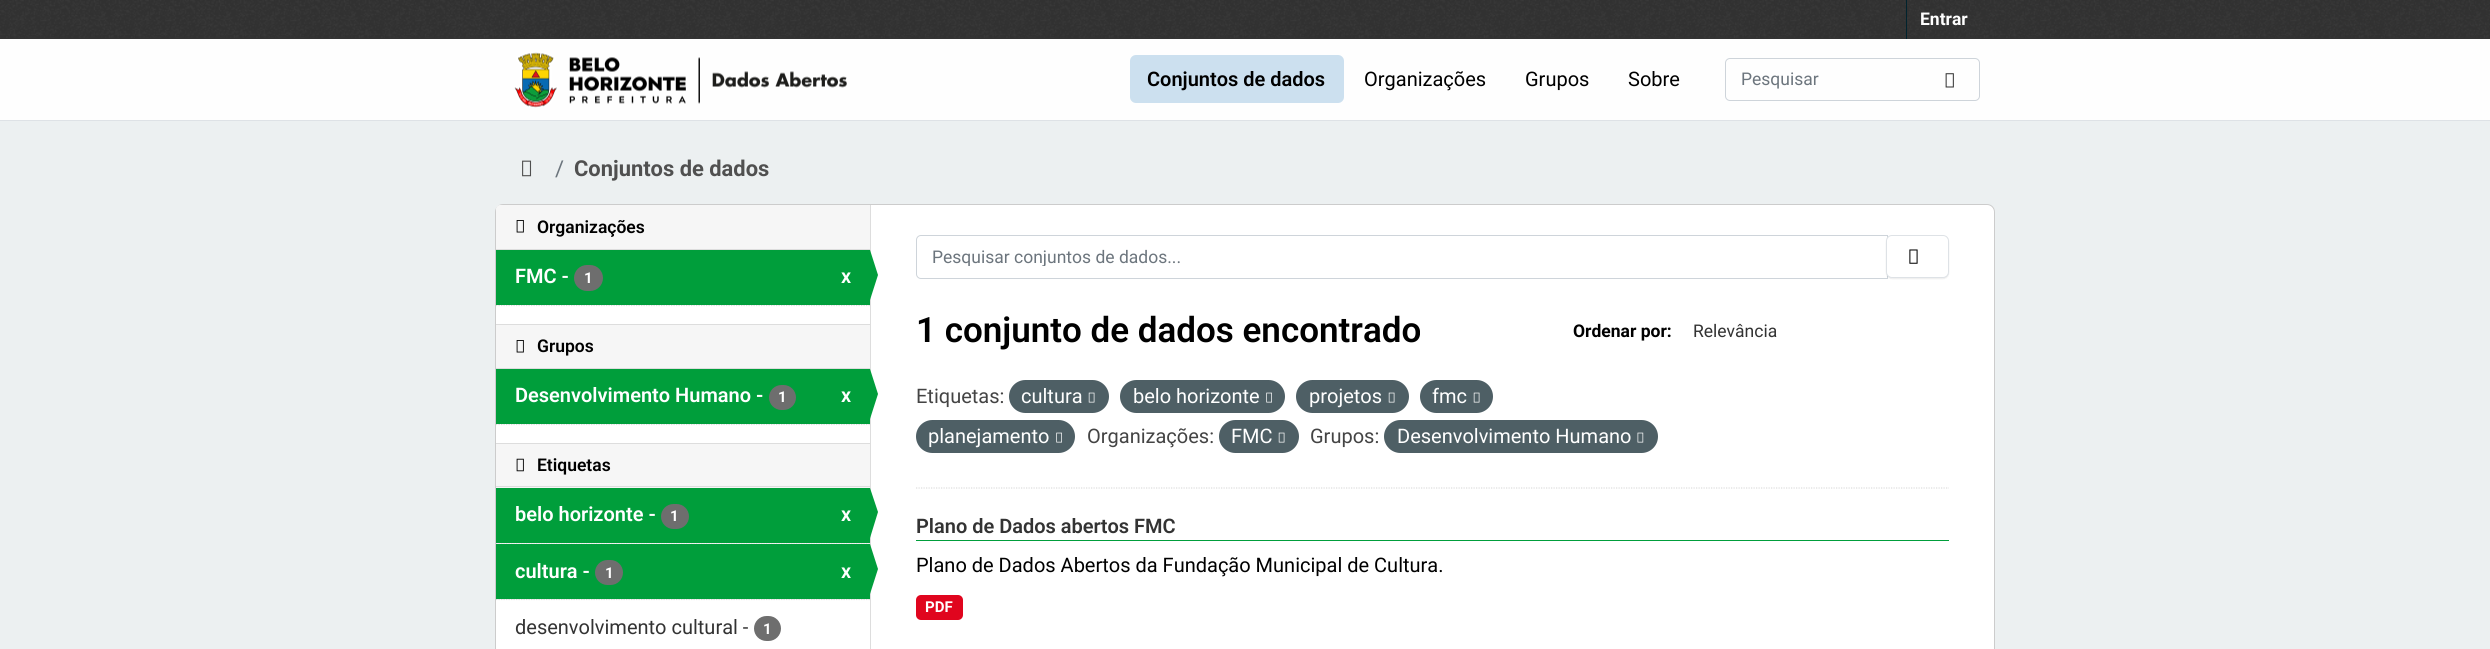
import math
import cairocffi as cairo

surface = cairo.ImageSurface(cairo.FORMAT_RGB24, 2490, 649)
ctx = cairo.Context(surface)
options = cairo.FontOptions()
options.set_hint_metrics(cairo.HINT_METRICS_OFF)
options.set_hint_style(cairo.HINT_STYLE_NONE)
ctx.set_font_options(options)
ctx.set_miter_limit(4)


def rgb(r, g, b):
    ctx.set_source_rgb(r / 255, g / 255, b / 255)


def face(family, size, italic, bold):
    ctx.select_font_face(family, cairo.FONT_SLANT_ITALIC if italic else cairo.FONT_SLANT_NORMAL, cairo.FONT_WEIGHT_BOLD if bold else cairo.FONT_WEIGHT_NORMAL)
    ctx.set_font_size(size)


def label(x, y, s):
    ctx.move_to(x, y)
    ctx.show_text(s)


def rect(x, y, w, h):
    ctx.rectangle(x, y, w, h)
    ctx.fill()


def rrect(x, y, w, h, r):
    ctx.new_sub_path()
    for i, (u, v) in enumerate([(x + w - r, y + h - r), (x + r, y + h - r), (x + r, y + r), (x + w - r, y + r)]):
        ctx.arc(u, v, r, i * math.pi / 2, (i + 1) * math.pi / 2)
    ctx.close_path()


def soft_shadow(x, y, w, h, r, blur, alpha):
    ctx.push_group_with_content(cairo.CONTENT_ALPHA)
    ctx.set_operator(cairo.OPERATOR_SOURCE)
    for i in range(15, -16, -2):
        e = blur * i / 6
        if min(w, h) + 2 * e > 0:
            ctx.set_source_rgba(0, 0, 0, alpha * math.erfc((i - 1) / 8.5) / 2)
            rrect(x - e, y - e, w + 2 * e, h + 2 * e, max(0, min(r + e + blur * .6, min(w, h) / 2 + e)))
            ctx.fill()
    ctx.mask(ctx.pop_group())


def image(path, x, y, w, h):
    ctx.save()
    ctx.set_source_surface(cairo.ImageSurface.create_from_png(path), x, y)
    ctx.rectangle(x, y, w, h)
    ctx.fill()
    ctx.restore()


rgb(236, 240, 241)
ctx.paint()
rgb(51, 51, 51)
rect(0, 0, 2490, 39)
image('image0.png', 0, 0, 2490, 38)
rgb(0, 35, 46)
rect(1906, 0, 1, 39)
face('Roboto', 17.5, 0, 1)
rgb(255, 255, 255)
label(1920, 25, 'Entrar')
rgb(254, 254, 254)
rect(0, 39, 2490, 81)
rgb(222, 226, 230)
rect(0, 120, 2490, 1)
image('image1.png', 514, 52, 333, 56)
rgb(204, 224, 239)
rrect(1130, 55, 214, 48, 6)
ctx.fill()
face('Roboto SemiBold', 20, 0, 0)
rgb(0, 0, 0)
label(1147, 86, 'Conjuntos de dados')
face('Roboto', 20, 0, 0)
label(1364, 86, 'Organizações')
label(1525, 86, 'Grupos')
label(1628, 86, 'Sobre')
rrect(1725.5, 58.5, 254, 42, 4.5)
rgb(206, 212, 218)
ctx.set_line_width(1)
ctx.stroke()
face('Roboto', 17.5, 0, 0)
rgb(108, 117, 125)
label(1741, 85, 'Pesquisar')
image('image2.png', 1945, 73, 9, 15)
image('image3.png', 522, 160, 10, 17)
face('Roboto', 21.9, 0, 0)
label(555, 176, '/')
face('Roboto', 21.9, 0, 1)
rgb(80, 80, 80)
label(574, 176, 'Conjuntos de dados')
rgb(255, 255, 255)
rrect(495.5, 204.5, 1499, 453, 7.5)
ctx.fill_preserve()
rgb(204, 204, 204)
ctx.stroke()
rgb(246, 246, 246)
ctx.new_path()
ctx.move_to(500, 205)
ctx.line_to(870, 205)
ctx.line_to(870, 250)
ctx.line_to(496, 250)
ctx.line_to(496, 209)
ctx.curve_to(496, 207, 498, 205, 500, 205)
ctx.close_path()
ctx.fill()
rgb(221, 221, 221)
rect(496, 249, 374, 1)
image('image4.png', 516, 220, 8, 13)
face('Roboto SemiBold', 17.5, 0, 0)
rgb(0, 0, 0)
label(537, 233, 'Organizações')
ctx.new_path()
ctx.move_to(496, 305.5)
ctx.line_to(870, 305.5)
rgb(221, 221, 221)
ctx.set_line_width(1.2)
ctx.set_dash([1.25, 1.25])
ctx.stroke()
rgb(0, 158, 59)
rect(496, 250, 374, 55)
face('Roboto SemiBold', 20, 0, 0)
rgb(255, 255, 255)
label(515, 283, 'FMC -')
rgb(110, 110, 110)
rrect(574, 265, 29, 26, 13)
ctx.fill()
face('Roboto', 15, 0, 1)
rgb(255, 255, 255)
label(584, 283, '1')
face('Roboto SemiBold', 20, 0, 0)
label(841, 283, 'x')
rgb(221, 221, 221)
rect(870, 205, 1, 444)
rgb(0, 158, 59)
ctx.new_path()
ctx.move_to(870, 300)
ctx.line_to(870, 250)
ctx.line_to(878, 275)
ctx.close_path()
ctx.fill()
rgb(246, 246, 246)
rect(496, 325, 374, 43)
rgb(221, 221, 221)
rect(496, 324, 374, 1)
rect(496, 368, 374, 1)
image('image4.png', 516, 340, 8, 13)
face('Roboto SemiBold', 17.5, 0, 0)
rgb(0, 0, 0)
label(537, 352, 'Grupos')
ctx.new_path()
ctx.move_to(496, 424.5)
ctx.line_to(870, 424.5)
rgb(221, 221, 221)
ctx.stroke()
rgb(0, 158, 59)
rect(496, 369, 374, 55)
face('Roboto SemiBold', 20, 0, 0)
rgb(255, 255, 255)
label(515, 402, 'Desenvolvimento Humano -')
rgb(110, 110, 110)
rrect(769, 385, 27, 25, 12.5)
ctx.fill()
face('Roboto', 15, 0, 1)
rgb(255, 255, 255)
label(778, 402, '1')
face('Roboto SemiBold', 20, 0, 0)
label(841, 402, 'x')
rgb(0, 158, 59)
ctx.new_path()
ctx.move_to(870, 419)
ctx.line_to(870, 369)
ctx.line_to(878, 394)
ctx.close_path()
ctx.fill()
rgb(246, 246, 246)
rect(496, 444, 374, 44)
rgb(221, 221, 221)
rect(496, 443, 374, 1)
rect(496, 486, 374, 1)
image('image5.png', 516, 458, 8, 14)
face('Roboto SemiBold', 17.5, 0, 0)
rgb(0, 0, 0)
label(537, 471, 'Etiquetas')
rgb(246, 246, 246)
rect(496, 543, 374, 1)
ctx.new_path()
ctx.move_to(496, 543)
ctx.line_to(870, 543)
rgb(221, 221, 221)
ctx.stroke()
rgb(0, 158, 59)
rect(496, 488, 374, 55)
face('Roboto SemiBold', 20, 0, 0)
rgb(255, 255, 255)
label(515, 521, 'belo horizonte -')
rgb(110, 110, 110)
rrect(661, 504, 28, 25, 12.5)
ctx.fill()
face('Roboto', 15, 0, 1)
rgb(255, 255, 255)
label(670, 521, '1')
face('Roboto SemiBold', 20, 0, 0)
label(841, 521, 'x')
rgb(0, 158, 59)
ctx.new_path()
ctx.move_to(870, 538)
ctx.line_to(870, 488)
ctx.line_to(878, 512)
ctx.close_path()
ctx.fill()
rgb(246, 246, 246)
rect(497, 599, 373, 1)
ctx.new_path()
ctx.move_to(496, 599.5)
ctx.line_to(870, 599.5)
rgb(221, 221, 221)
ctx.stroke()
rgb(0, 158, 59)
rect(496, 544, 374, 55)
rgb(255, 255, 255)
label(515, 578, 'cultura -')
rgb(110, 110, 110)
rrect(595, 560, 28, 25, 12.5)
ctx.fill()
face('Roboto', 15, 0, 1)
rgb(255, 255, 255)
label(605, 578, '1')
face('Roboto SemiBold', 20, 0, 0)
label(841, 578, 'x')
rgb(0, 158, 59)
ctx.new_path()
ctx.move_to(870, 594)
ctx.line_to(870, 544)
ctx.line_to(878, 569)
ctx.close_path()
ctx.fill()
face('Roboto', 20, 0, 0)
rgb(51, 51, 51)
label(515, 634, 'desenvolvimento cultural -')
rgb(110, 110, 110)
rrect(754, 616, 27, 25, 12.5)
ctx.fill()
face('Roboto', 15, 0, 1)
rgb(255, 255, 255)
label(763, 634, '1')
ctx.new_path()
ctx.move_to(916, 488)
ctx.line_to(1949, 488)
rgb(221, 221, 221)
ctx.stroke()
ctx.new_path()
ctx.move_to(921, 235.5)
ctx.line_to(1887.5, 235.5)
ctx.line_to(1887.5, 278.5)
ctx.line_to(921, 278.5)
ctx.curve_to(918.5, 278.5, 916.5, 276.5, 916.5, 274)
ctx.line_to(916.5, 240)
ctx.curve_to(916.5, 237.5, 918.5, 235.5, 921, 235.5)
ctx.close_path()
rgb(206, 212, 218)
ctx.set_line_width(1)
ctx.set_dash([])
ctx.stroke()
ctx.save()
ctx.rectangle(933, 246, 938, 20)
ctx.clip()
face('Roboto', 17.5, 0, 0)
rgb(108, 117, 125)
label(932, 263, 'Pesquisar conjuntos de dados...')
ctx.restore()
rgb(0, 0, 0)
soft_shadow(1886, 236, 63, 43, 6, 0.5, 0.07)
rgb(255, 255, 255)
rrect(1886.5, 235.5, 62, 42, 5.5)
ctx.fill_preserve()
rgb(222, 226, 230)
ctx.stroke()
image('image6.png', 1909, 249, 9, 15)
face('Roboto SemiBold', 35, 0, 0)
rgb(0, 0, 0)
label(916, 342, '1 conjunto de dados encontrado')
face('Roboto', 17.5, 0, 1)
label(1573, 337, 'Ordenar por:')
face('Roboto', 17.5, 0, 0)
rgb(51, 51, 51)
label(1693, 337, 'Relevância')
face('Roboto', 20, 0, 0)
rgb(68, 68, 68)
label(916, 403, 'Etiquetas:')
rgb(78, 95, 101)
rrect(1009, 380, 100, 33, 16.5)
ctx.fill()
rgb(255, 255, 255)
label(1021, 403, 'cultura')
image('image7.png', 1088, 392, 7, 11)
rgb(78, 95, 101)
rrect(1120, 380, 165, 33, 16.5)
ctx.fill()
rgb(255, 255, 255)
label(1133, 403, 'belo horizonte')
image('image8.png', 1266, 392, 6, 11)
rgb(78, 95, 101)
rrect(1296, 380, 113, 33, 16.5)
ctx.fill()
rgb(255, 255, 255)
label(1309, 403, 'projetos')
image('image7.png', 1388, 392, 7, 11)
rgb(78, 95, 101)
rrect(1420, 380, 73, 33, 16.5)
ctx.fill()
rgb(255, 255, 255)
label(1432, 403, 'fmc')
image('image7.png', 1473, 392, 7, 11)
rgb(78, 95, 101)
rrect(916, 420, 159, 33, 16.5)
ctx.fill()
rgb(255, 255, 255)
label(928, 443, 'planejamento')
image('image8.png', 1056, 432, 6, 11)
rgb(68, 68, 68)
label(1087, 443, 'Organizações:')
rgb(78, 95, 101)
rrect(1219, 420, 80, 33, 16.5)
ctx.fill()
rgb(255, 255, 255)
label(1231, 443, 'FMC')
image('image7.png', 1278, 432, 7, 11)
rgb(68, 68, 68)
label(1310, 443, 'Grupos:')
rgb(78, 95, 101)
rrect(1384, 420, 274, 33, 16.5)
ctx.fill()
rgb(255, 255, 255)
label(1397, 443, 'Desenvolvimento Humano')
image('image9.png', 1637, 432, 7, 11)
rgb(0, 158, 59)
rect(916, 540, 1033, 1)
face('Roboto SemiBold', 20, 0, 0)
rgb(51, 51, 51)
label(916, 533, 'Plano de Dados abertos FMC')
face('Roboto', 20, 0, 0)
rgb(0, 0, 0)
label(916, 572, 'Plano de Dados Abertos da Fundação Municipal de Cultura.')
rgb(224, 5, 30)
rrect(916, 595, 47, 25, 5)
ctx.fill()
face('Roboto', 15, 0, 1)
rgb(255, 255, 255)
label(925, 612, 'PDF')
surface.write_to_png('render.png')
